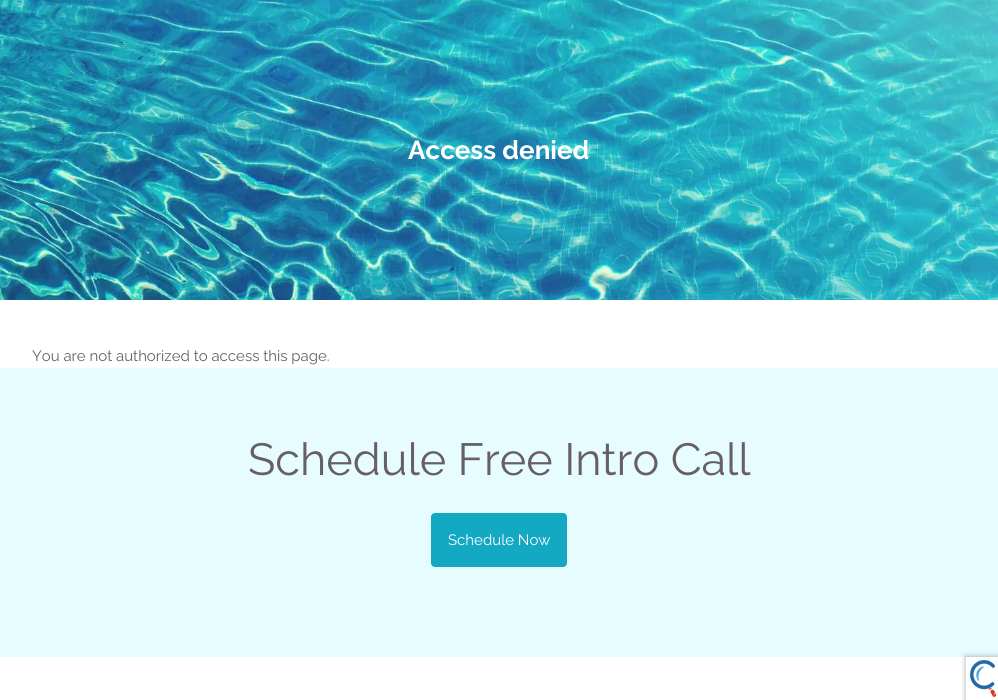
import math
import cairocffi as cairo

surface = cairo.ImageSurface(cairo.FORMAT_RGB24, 998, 700)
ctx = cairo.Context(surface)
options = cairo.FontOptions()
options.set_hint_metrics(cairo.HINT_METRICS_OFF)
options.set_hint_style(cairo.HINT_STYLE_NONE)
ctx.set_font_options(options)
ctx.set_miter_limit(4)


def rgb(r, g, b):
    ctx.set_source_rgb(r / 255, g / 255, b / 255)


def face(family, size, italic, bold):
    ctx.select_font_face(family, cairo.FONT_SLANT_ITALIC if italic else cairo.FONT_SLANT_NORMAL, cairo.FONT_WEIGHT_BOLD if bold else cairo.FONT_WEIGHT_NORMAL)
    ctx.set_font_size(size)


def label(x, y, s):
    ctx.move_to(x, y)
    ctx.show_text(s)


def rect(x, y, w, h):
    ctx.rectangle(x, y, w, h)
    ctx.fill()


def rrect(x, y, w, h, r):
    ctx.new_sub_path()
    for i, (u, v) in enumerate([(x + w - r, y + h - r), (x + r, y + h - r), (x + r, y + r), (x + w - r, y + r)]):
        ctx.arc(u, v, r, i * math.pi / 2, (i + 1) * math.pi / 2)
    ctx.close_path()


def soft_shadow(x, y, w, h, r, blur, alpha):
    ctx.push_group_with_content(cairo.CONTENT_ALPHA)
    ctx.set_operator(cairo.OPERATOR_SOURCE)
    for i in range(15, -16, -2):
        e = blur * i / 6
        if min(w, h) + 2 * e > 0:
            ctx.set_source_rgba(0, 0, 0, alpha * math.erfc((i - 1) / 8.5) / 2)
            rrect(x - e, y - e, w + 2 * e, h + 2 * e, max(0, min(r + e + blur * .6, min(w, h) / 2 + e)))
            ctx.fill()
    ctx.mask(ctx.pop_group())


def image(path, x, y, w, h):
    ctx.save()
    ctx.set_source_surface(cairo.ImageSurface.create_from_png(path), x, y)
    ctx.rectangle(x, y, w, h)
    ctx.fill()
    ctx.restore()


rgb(255, 255, 255)
ctx.paint()
image('image0.png', 0, 0, 998, 300)
face('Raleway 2 Thin', 26, 0, 0)
rgb(255, 255, 255)
label(408, 159, 'Access denied')
face('Raleway Thin', 15, 0, 0)
rgb(102, 96, 100)
label(32, 361, 'You are not authorized to access this page.')
rgb(231, 252, 255)
rect(0, 368, 998, 289)
face('Raleway Thin', 45, 0, 0)
rgb(102, 96, 100)
label(248, 475, 'Schedule Free Intro Call')
rgb(20, 169, 195)
rrect(431, 513, 136, 54, 4)
ctx.fill()
face('Raleway Thin', 15, 0, 0)
rgb(255, 255, 255)
label(448, 545, 'Schedule Now')
ctx.save()
ctx.set_fill_rule(cairo.FILL_RULE_EVEN_ODD)
ctx.new_path()
ctx.move_to(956, 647)
ctx.line_to(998, 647)
ctx.line_to(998, 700)
ctx.line_to(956, 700)
ctx.close_path()
ctx.move_to(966, 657)
ctx.line_to(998, 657)
ctx.line_to(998, 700)
ctx.line_to(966, 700)
ctx.close_path()
ctx.clip()
rgb(0, 0, 0)
soft_shadow(965, 656, 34, 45, 0, 2.5, 0.25)
ctx.restore()
image('image1.png', 970, 660, 27, 37)
surface.write_to_png('render.png')
